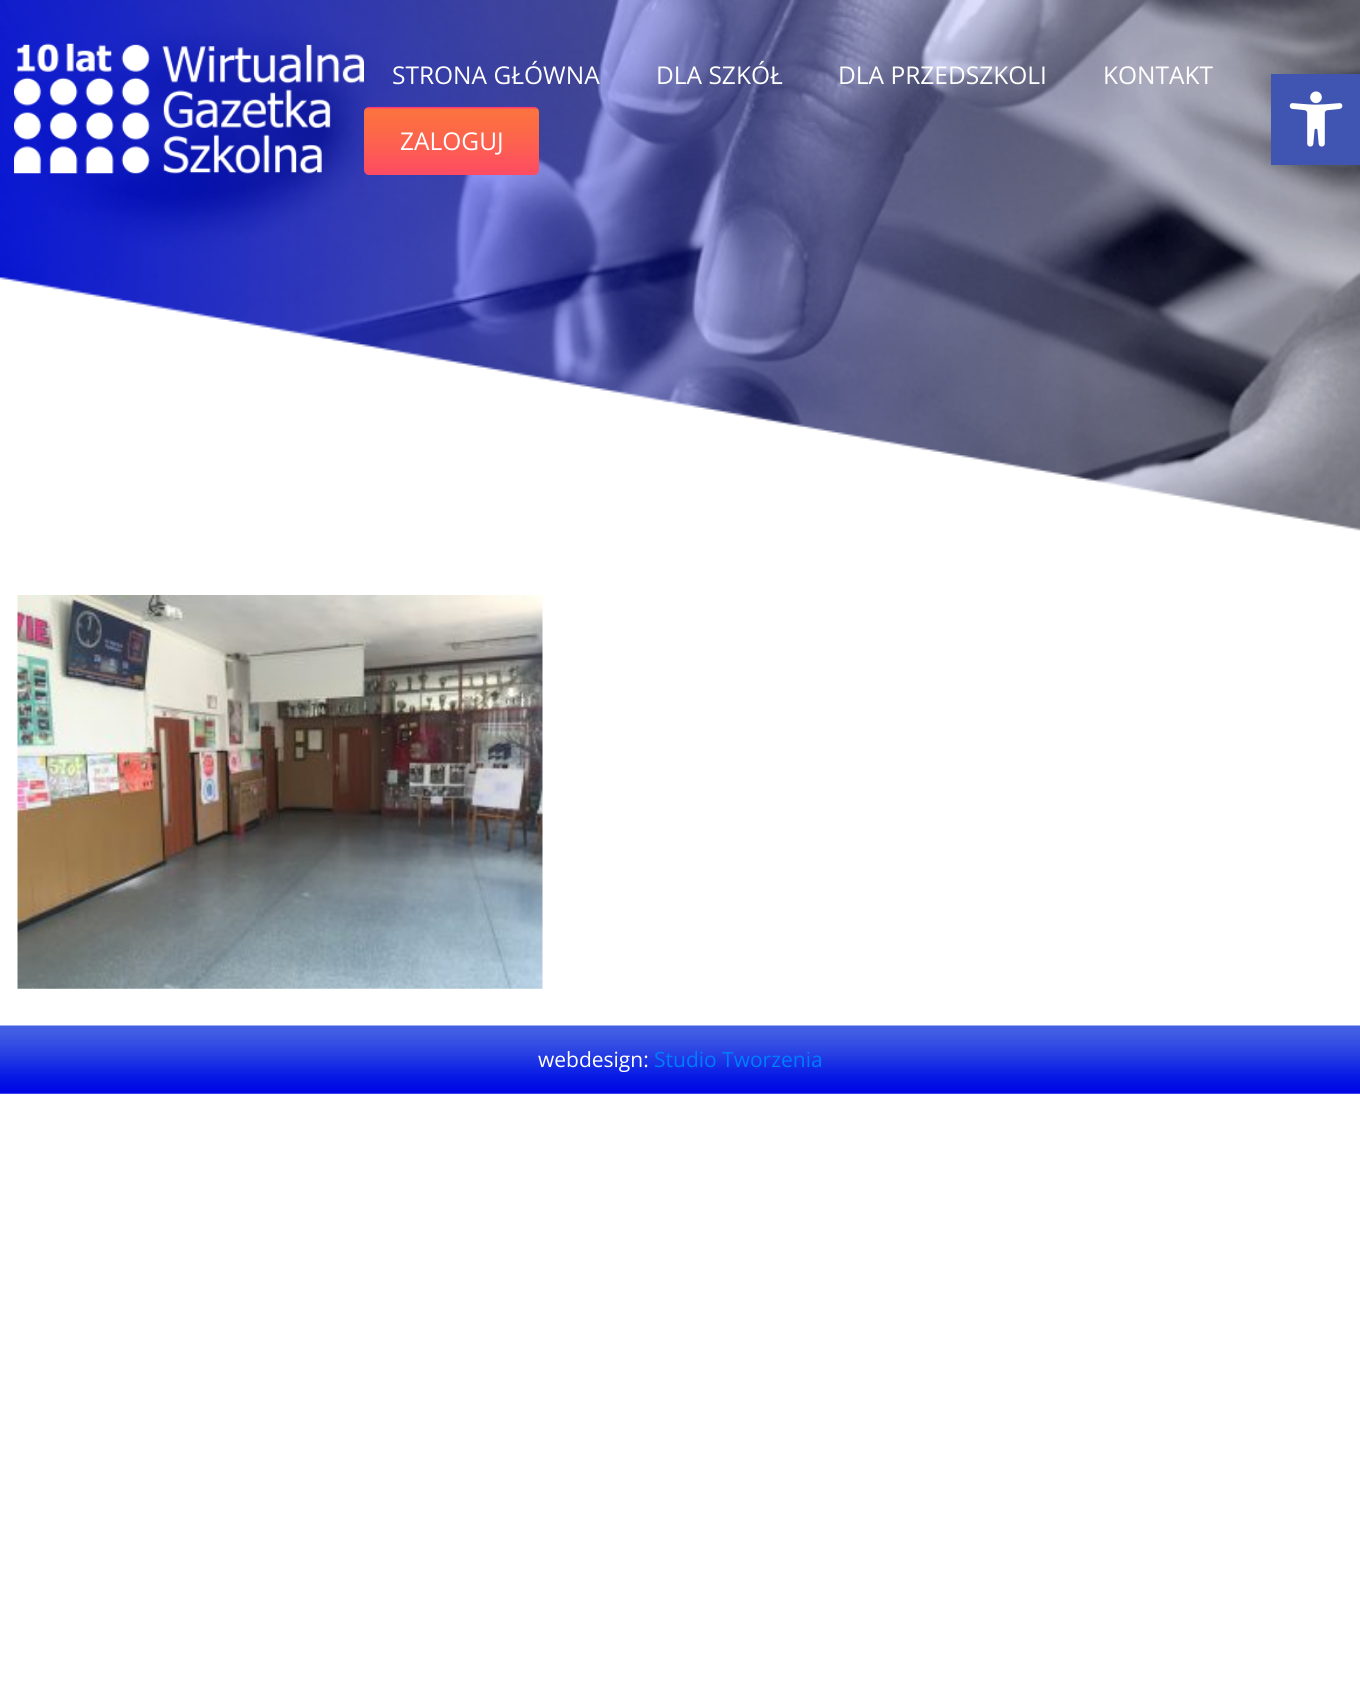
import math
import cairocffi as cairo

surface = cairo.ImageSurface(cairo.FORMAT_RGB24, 1360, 1688)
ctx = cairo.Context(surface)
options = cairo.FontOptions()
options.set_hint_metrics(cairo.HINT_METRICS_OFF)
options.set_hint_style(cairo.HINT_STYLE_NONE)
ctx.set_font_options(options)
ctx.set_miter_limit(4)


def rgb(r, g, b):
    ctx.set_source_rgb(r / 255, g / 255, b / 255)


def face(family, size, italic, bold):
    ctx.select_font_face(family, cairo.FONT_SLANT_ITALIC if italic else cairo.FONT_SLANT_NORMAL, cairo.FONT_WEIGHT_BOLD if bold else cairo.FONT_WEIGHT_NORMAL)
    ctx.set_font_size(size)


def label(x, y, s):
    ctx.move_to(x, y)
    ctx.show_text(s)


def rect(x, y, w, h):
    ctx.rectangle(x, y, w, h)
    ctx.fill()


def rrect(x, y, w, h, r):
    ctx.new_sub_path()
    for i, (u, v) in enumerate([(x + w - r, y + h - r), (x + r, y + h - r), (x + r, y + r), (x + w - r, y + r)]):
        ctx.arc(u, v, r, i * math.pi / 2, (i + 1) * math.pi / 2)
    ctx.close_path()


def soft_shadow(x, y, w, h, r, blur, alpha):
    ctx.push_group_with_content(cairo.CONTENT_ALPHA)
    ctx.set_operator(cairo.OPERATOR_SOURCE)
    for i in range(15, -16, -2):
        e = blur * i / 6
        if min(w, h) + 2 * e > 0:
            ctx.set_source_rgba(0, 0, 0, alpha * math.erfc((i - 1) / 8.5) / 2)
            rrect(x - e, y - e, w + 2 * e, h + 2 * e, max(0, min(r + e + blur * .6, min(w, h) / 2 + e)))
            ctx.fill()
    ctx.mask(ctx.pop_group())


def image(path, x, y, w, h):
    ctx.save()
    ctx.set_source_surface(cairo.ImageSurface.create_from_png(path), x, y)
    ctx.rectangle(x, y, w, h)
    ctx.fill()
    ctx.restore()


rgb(255, 255, 255)
ctx.paint()
image('image0.png', 0, 0, 1360, 531)
image('image1.png', 14, 43, 350, 131)
face('Open Sans', 24.5, 0, 0)
rgb(255, 255, 255)
label(392, 84, 'STRONA GŁÓWNA')
label(656, 84, 'DLA SZKÓŁ')
label(838, 84, 'DLA PRZEDSZKOLI')
label(1103, 84, 'KONTAKT')
image('image2.png', 364, 106, 175, 69)
label(400, 150, 'ZALOGUJ')
image('image3.png', 17, 595, 526, 394)
rgb(0, 0, 0)
soft_shadow(1271, 74, 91, 91, 0, 9, 0.1)
rgb(64, 84, 178)
rect(1271, 74, 89, 91)
image('image4.png', 1289, 91, 54, 56)
image('image5.png', 0, 1025, 1360, 69)
face('Open Sans', 21, 0, 0)
rgb(255, 255, 255)
label(538, 1067, 'webdesign:')
rgb(0, 124, 255)
label(654, 1067, 'Studio Tworzenia')
surface.write_to_png('render.png')
